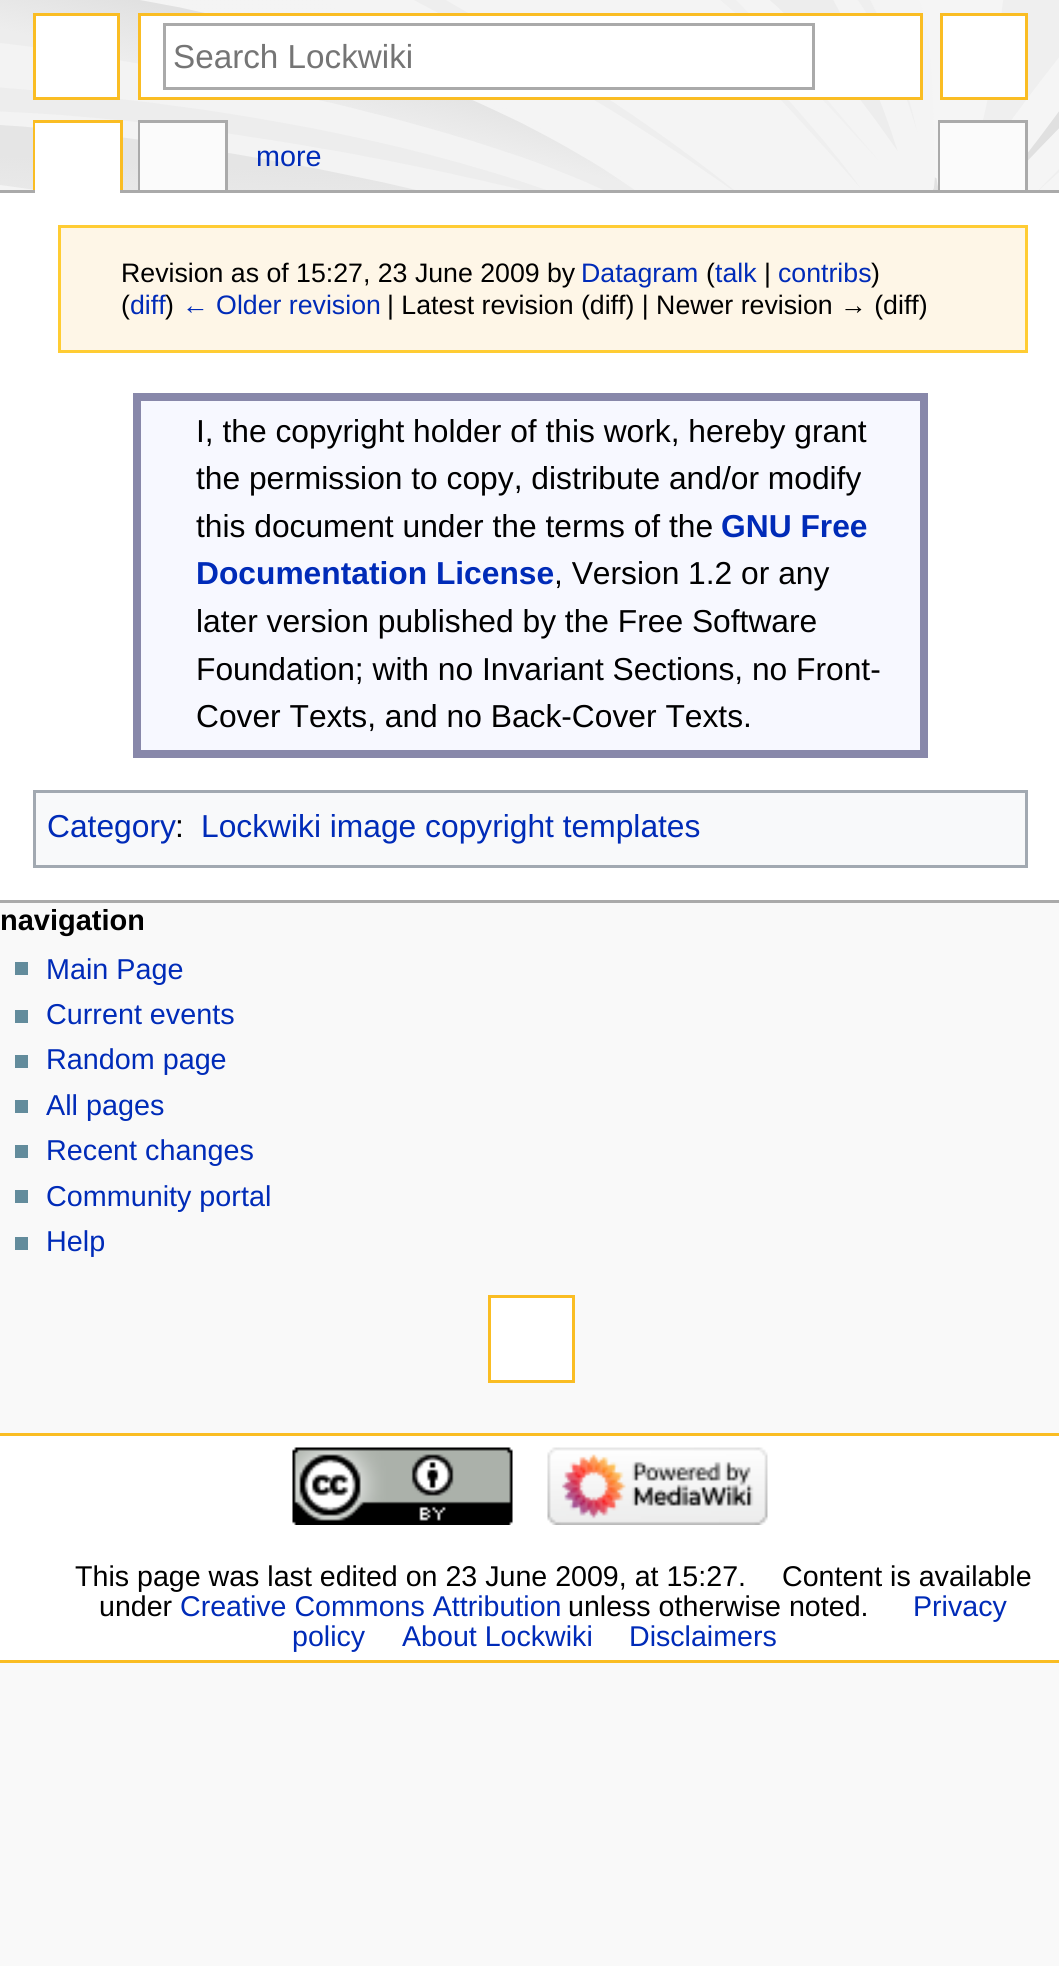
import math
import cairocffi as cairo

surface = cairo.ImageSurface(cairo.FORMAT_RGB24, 1059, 1966)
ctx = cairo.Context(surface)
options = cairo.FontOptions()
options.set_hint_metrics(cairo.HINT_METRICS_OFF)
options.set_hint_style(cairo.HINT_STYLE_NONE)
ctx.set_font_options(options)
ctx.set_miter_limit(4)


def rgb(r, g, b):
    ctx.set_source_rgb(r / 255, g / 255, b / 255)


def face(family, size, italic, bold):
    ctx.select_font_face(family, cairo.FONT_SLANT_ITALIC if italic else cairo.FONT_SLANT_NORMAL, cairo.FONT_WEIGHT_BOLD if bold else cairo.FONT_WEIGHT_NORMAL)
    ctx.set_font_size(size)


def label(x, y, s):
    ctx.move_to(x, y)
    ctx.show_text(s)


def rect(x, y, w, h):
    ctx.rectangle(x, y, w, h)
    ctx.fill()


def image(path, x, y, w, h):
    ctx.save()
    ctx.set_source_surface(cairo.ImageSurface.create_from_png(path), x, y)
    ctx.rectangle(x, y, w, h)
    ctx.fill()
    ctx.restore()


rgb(249, 249, 249)
ctx.paint()
image('image0.png', 0, 0, 1059, 190)
rgb(255, 255, 255)
ctx.rectangle(34.5, 14.5, 84, 84)
ctx.fill_preserve()
rgb(250, 189, 35)
ctx.set_line_width(3)
ctx.stroke()
rgb(255, 255, 255)
ctx.rectangle(941.5, 14.5, 85, 84)
ctx.fill_preserve()
rgb(250, 189, 35)
ctx.stroke()
rgb(255, 255, 255)
ctx.rectangle(139.5, 14.5, 782, 84)
ctx.fill_preserve()
rgb(250, 189, 35)
ctx.stroke()
ctx.rectangle(164.5, 24.5, 649, 64)
rgb(170, 170, 170)
ctx.stroke()
face('Liberation Sans', 33.25, 0, 0)
rgb(117, 117, 117)
label(173, 68, 'Search Lockwiki')
face('Liberation Sans', 29, 0, 1)
rgb(0, 0, 0)
label(0, 930, 'navigation')
rgb(99, 140, 156)
rect(15, 962, 13, 13)
face('Liberation Sans', 28.75, 0, 0)
rgb(0, 43, 184)
label(46, 979, 'Main Page')
rgb(99, 140, 156)
rect(15, 1010, 13, 13)
rgb(0, 43, 184)
label(46, 1024, 'Current events')
rgb(99, 140, 156)
rect(15, 1055, 13, 13)
rgb(0, 43, 184)
label(46, 1069, 'Random page')
rgb(99, 140, 156)
rect(15, 1100, 13, 13)
rgb(0, 43, 184)
label(46, 1115, 'All pages')
rgb(99, 140, 156)
rect(15, 1145, 13, 13)
rgb(0, 43, 184)
label(46, 1160, 'Recent changes')
rgb(99, 140, 156)
rect(15, 1190, 13, 13)
rgb(0, 43, 184)
label(46, 1206, 'Community portal')
rgb(99, 140, 156)
rect(15, 1237, 13, 13)
rgb(0, 43, 184)
label(46, 1251, 'Help')
rgb(250, 189, 35)
rect(33, 120, 90, 3)
rect(120, 120, 3, 73)
rect(33, 120, 3, 73)
rgb(170, 170, 170)
rect(138, 120, 90, 3)
rect(225, 120, 3, 73)
rect(138, 120, 3, 73)
rect(938, 120, 90, 3)
rect(1025, 120, 3, 73)
rect(938, 120, 3, 73)
rect(0, 190, 1059, 3)
rgb(255, 255, 255)
rect(35, 123, 85, 70)
rgb(251, 251, 251)
rect(140, 123, 85, 67)
rgb(0, 43, 184)
label(256, 166, 'more')
rgb(251, 251, 251)
rect(940, 123, 85, 67)
rgb(255, 255, 255)
ctx.rectangle(489.5, 1296.5, 84, 85)
ctx.fill_preserve()
rgb(250, 189, 35)
ctx.stroke()
rgb(255, 255, 255)
rect(0, 193, 1059, 707)
rgb(170, 170, 170)
rect(0, 900, 1059, 3)
rgb(254, 246, 231)
ctx.rectangle(59.5, 226.5, 967, 125)
ctx.fill_preserve()
rgb(255, 204, 51)
ctx.stroke()
face('Liberation Sans', 26.7, 0, 0)
rgb(0, 0, 0)
label(121, 282, 'Revision as of 15:27, 23 June 2009 by')
rgb(0, 43, 184)
label(581, 282, 'Datagram')
rgb(0, 0, 0)
label(706, 282, '(')
rgb(0, 43, 184)
label(715, 282, 'talk')
rgb(0, 0, 0)
label(764, 282, '|')
rgb(0, 43, 184)
label(778, 282, 'contribs')
rgb(0, 0, 0)
label(871, 282, ')')
label(121, 314, '(')
rgb(0, 43, 184)
label(130, 314, 'diff')
rgb(0, 0, 0)
label(165, 314, ')')
rgb(0, 43, 184)
label(182, 314, '← Older revision')
rgb(0, 0, 0)
label(387, 314, '| Latest revision (diff) | Newer revision → (diff)')
rgb(247, 248, 255)
rect(141, 401, 779, 349)
rgb(136, 136, 170)
rect(133, 393, 795, 8)
rect(920, 393, 8, 365)
rect(133, 750, 795, 8)
rect(133, 393, 8, 365)
face('Liberation Sans', 31.75, 0, 0)
rgb(0, 0, 0)
label(196, 442, 'I, the copyright holder of this work, hereby grant')
label(196, 489, 'the permission to copy, distribute and/or modify')
label(196, 537, 'this document under the terms of the')
face('Liberation Sans', 31.75, 0, 1)
rgb(0, 43, 184)
label(721, 537, 'GNU Free')
label(196, 584, 'Documentation License')
face('Liberation Sans', 31.75, 0, 0)
rgb(0, 0, 0)
label(554, 584, ', Version 1.2 or any')
label(196, 632, 'later version published by the Free Software')
label(196, 680, 'Foundation; with no Invariant Sections, no Front-')
label(196, 727, 'Cover Texts, and no Back-Cover Texts.')
rgb(248, 249, 250)
ctx.rectangle(34.5, 791.5, 992, 75)
ctx.fill_preserve()
rgb(162, 169, 177)
ctx.stroke()
rgb(0, 43, 184)
label(47, 837, 'Category')
rgb(0, 0, 0)
label(175, 837, ':')
rgb(0, 43, 184)
label(201, 837, 'Lockwiki image copyright templates')
rgb(255, 255, 255)
rect(0, 1436, 1059, 224)
rgb(250, 189, 35)
rect(0, 1433, 1059, 3)
rect(0, 1660, 1059, 3)
image('image1.png', 292, 1447, 221, 78)
image('image2.png', 547, 1447, 221, 78)
face('Liberation Sans', 28.6, 0, 0)
rgb(0, 0, 0)
label(75, 1586, 'This page was last edited on 23 June 2009, at 15:27.')
label(782, 1586, 'Content is available')
label(99, 1616, 'under')
rgb(0, 43, 184)
label(180, 1616, 'Creative Commons Attribution')
rgb(0, 0, 0)
label(568, 1616, 'unless otherwise noted.')
rgb(0, 43, 184)
label(913, 1616, 'Privacy')
label(292, 1646, 'policy')
label(402, 1646, 'About Lockwiki')
label(629, 1646, 'Disclaimers')
surface.write_to_png('render.png')
